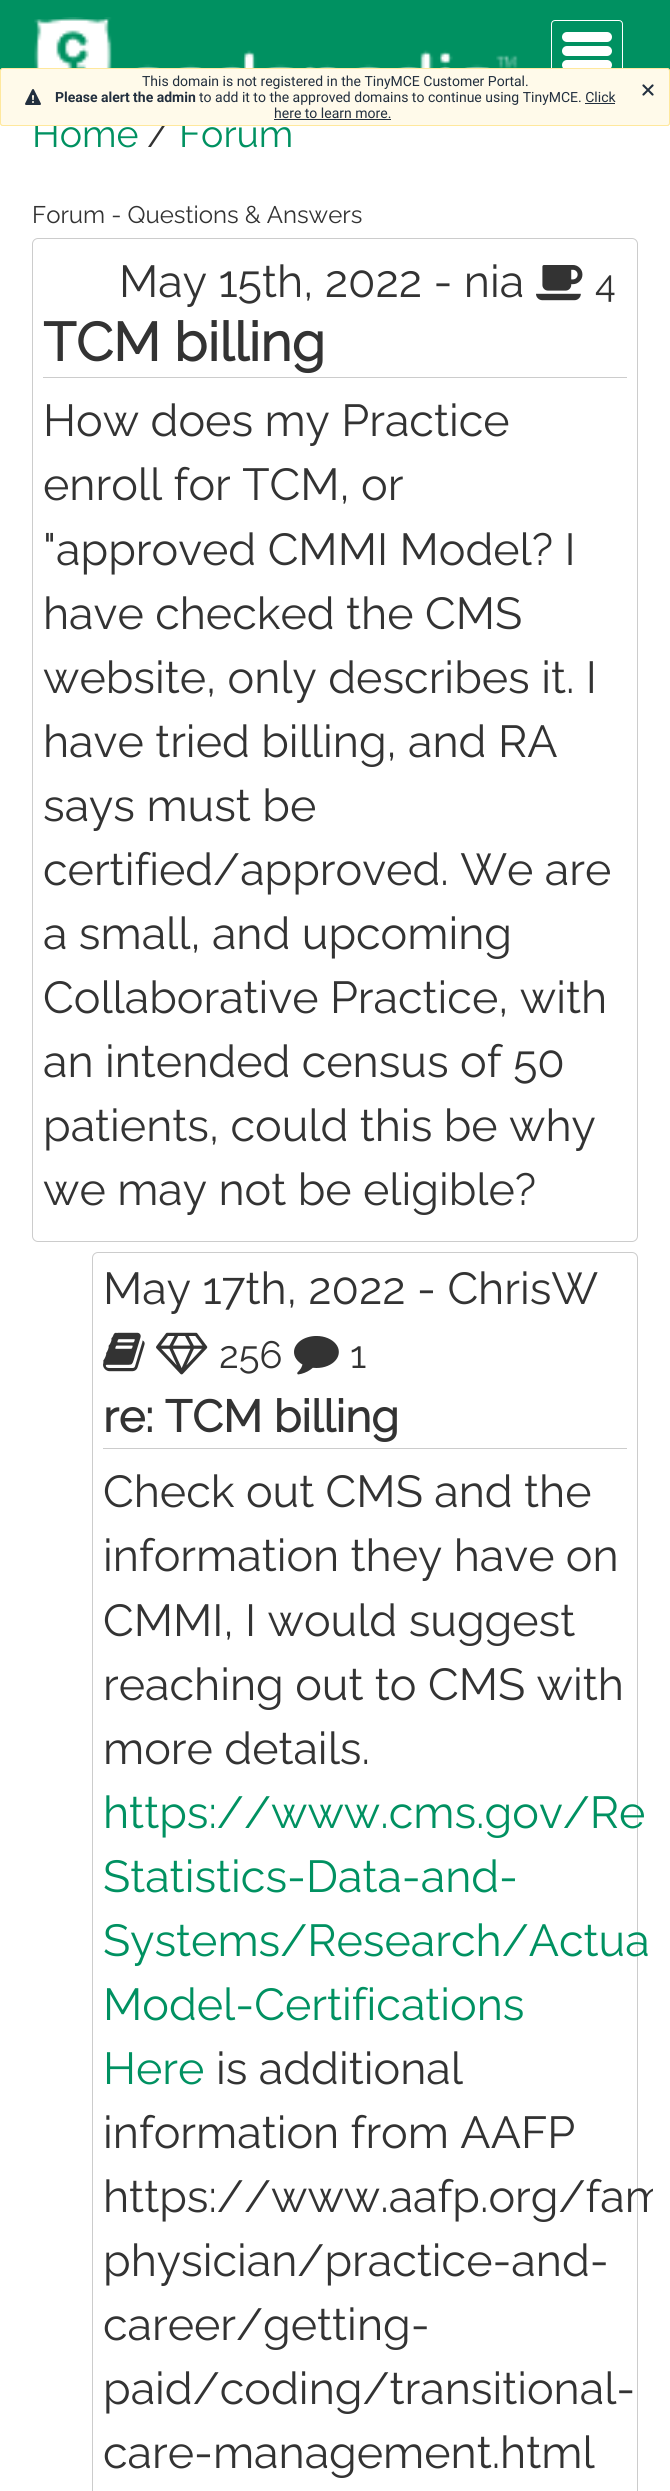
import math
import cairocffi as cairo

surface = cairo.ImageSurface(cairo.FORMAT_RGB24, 670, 2491)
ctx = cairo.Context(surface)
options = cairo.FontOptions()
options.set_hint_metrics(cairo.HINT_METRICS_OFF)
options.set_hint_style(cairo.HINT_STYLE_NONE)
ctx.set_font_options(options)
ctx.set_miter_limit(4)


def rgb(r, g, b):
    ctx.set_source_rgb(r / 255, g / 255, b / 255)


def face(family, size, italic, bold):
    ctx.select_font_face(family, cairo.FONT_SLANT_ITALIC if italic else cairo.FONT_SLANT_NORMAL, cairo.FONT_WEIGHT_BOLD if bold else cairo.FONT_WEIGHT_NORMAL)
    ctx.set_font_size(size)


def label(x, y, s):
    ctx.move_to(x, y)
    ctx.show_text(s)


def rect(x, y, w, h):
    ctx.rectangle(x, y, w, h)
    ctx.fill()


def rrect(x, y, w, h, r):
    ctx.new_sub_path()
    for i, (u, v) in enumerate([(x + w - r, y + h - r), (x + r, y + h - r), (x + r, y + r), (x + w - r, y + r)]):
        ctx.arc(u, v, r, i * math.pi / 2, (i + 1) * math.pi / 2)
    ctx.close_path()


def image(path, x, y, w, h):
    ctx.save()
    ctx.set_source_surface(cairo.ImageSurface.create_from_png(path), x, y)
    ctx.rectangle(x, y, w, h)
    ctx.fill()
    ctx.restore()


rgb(255, 255, 255)
ctx.paint()
rgb(0, 145, 97)
rect(0, 0, 670, 71)
image('image0.png', 34, 17, 484, 51)
rrect(551.5, 20.5, 71, 59, 3.5)
rgb(255, 255, 255)
ctx.set_line_width(1)
ctx.stroke()
rrect(562, 32, 50, 10, 5)
ctx.fill()
rrect(562, 46, 50, 10, 5)
ctx.fill()
rrect(562, 60, 50, 10, 5)
ctx.fill()
face('Raleway Thin', 37.5, 0, 0)
rgb(0, 145, 97)
label(32, 147, 'Home')
rgb(51, 51, 51)
label(147, 147, '/')
rgb(0, 145, 97)
label(179, 147, 'Forum')
rrect(0.5, 68.5, 669, 57, 2.5)
rgb(255, 232, 157)
ctx.stroke()
rgb(255, 250, 234)
rrect(0.5, 68.5, 669, 57, 2.5)
ctx.fill_preserve()
rgb(255, 232, 157)
ctx.stroke()
image('image1.png', 25, 89, 16, 16)
face('Roboto', 14, 0, 0)
rgb(34, 47, 62)
label(142, 86, 'This domain is not registered in the TinyMCE Customer Portal.')
face('Roboto', 14, 0, 1)
label(55, 102, 'Please alert the admin')
face('Roboto', 14, 0, 0)
label(199, 102, 'to add it to the approved domains to continue using TinyMCE. Click')
label(274, 118, 'here to learn more.')
rect(585, 103, 30, 1)
rect(274, 119, 117, 1)
image('image2.png', 642, 84, 12, 12)
face('Raleway Thin', 24, 0, 0)
rgb(51, 51, 51)
label(32, 223, 'Forum - Questions & Answers')
rrect(32.5, 238.5, 605, 1003, 5.5)
rgb(204, 204, 204)
ctx.stroke()
face('Raleway Thin', 44.8, 0, 0)
rgb(51, 51, 51)
label(119, 297, 'May 15th, 2022 - nia')
image('image3.png', 536, 265, 47, 36)
face('Raleway Thin', 38, 0, 0)
label(595, 297, '4')
rgb(204, 204, 204)
rect(43, 377, 584, 1)
face('Raleway', 54, 0, 1)
rgb(51, 51, 51)
label(43, 361, 'TCM billing')
face('Raleway Thin', 44.8, 0, 0)
label(43, 436, 'How does my Practice')
label(43, 500, 'enroll for TCM, or')
label(43, 565, '"approved CMMI Model? I')
label(43, 629, 'have checked the CMS')
label(43, 693, 'website, only describes it. I')
label(43, 757, 'have tried billing, and RA')
label(43, 821, 'says must be')
label(43, 885, 'certified/approved. We are')
label(43, 949, 'a small, and upcoming')
label(43, 1013, 'Collaborative Practice, with')
label(43, 1077, 'an intended census of 50')
label(43, 1141, 'patients, could this be why')
label(43, 1205, 'we may not be eligible?')
rrect(92.5, 1252.5, 545, 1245, 5.5)
rgb(204, 204, 204)
ctx.stroke()
rgb(51, 51, 51)
label(103, 1304, 'May 17th, 2022 - ChrisW')
image('image4.png', 103, 1332, 42, 40)
image('image5.png', 156, 1332, 52, 43)
face('Raleway Thin', 38, 0, 0)
label(219, 1368, '256')
image('image6.png', 294, 1336, 45, 39)
label(350, 1368, '1')
rgb(204, 204, 204)
rect(103, 1448, 524, 1)
face('Raleway', 44.8, 0, 1)
rgb(51, 51, 51)
label(103, 1432, 're: TCM billing')
face('Raleway Thin', 44.8, 0, 0)
label(103, 1507, 'Check out CMS and the')
label(103, 1571, 'information they have on')
label(103, 1636, 'CMMI, I would suggest')
label(103, 1700, 'reaching out to CMS with')
label(103, 1764, 'more details.')
rgb(0, 145, 97)
label(103, 1828, 'https://www.cms.gov/Re')
label(103, 1892, 'Statistics-Data-and-')
label(103, 1956, 'Systems/Research/Actua')
label(103, 2020, 'Model-Certifications')
label(103, 2084, 'Here')
rgb(51, 51, 51)
label(216, 2084, 'is additional')
label(103, 2148, 'information from AAFP')
ctx.save()
ctx.rectangle(17, 101, 636, 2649)
ctx.clip()
label(103, 2212, 'https://www.aafp.org/fam')
ctx.restore()
label(103, 2276, 'physician/practice-and-')
label(103, 2340, 'career/getting-')
label(103, 2404, 'paid/coding/transitional-')
label(103, 2468, 'care-management.html')
surface.write_to_png('render.png')
